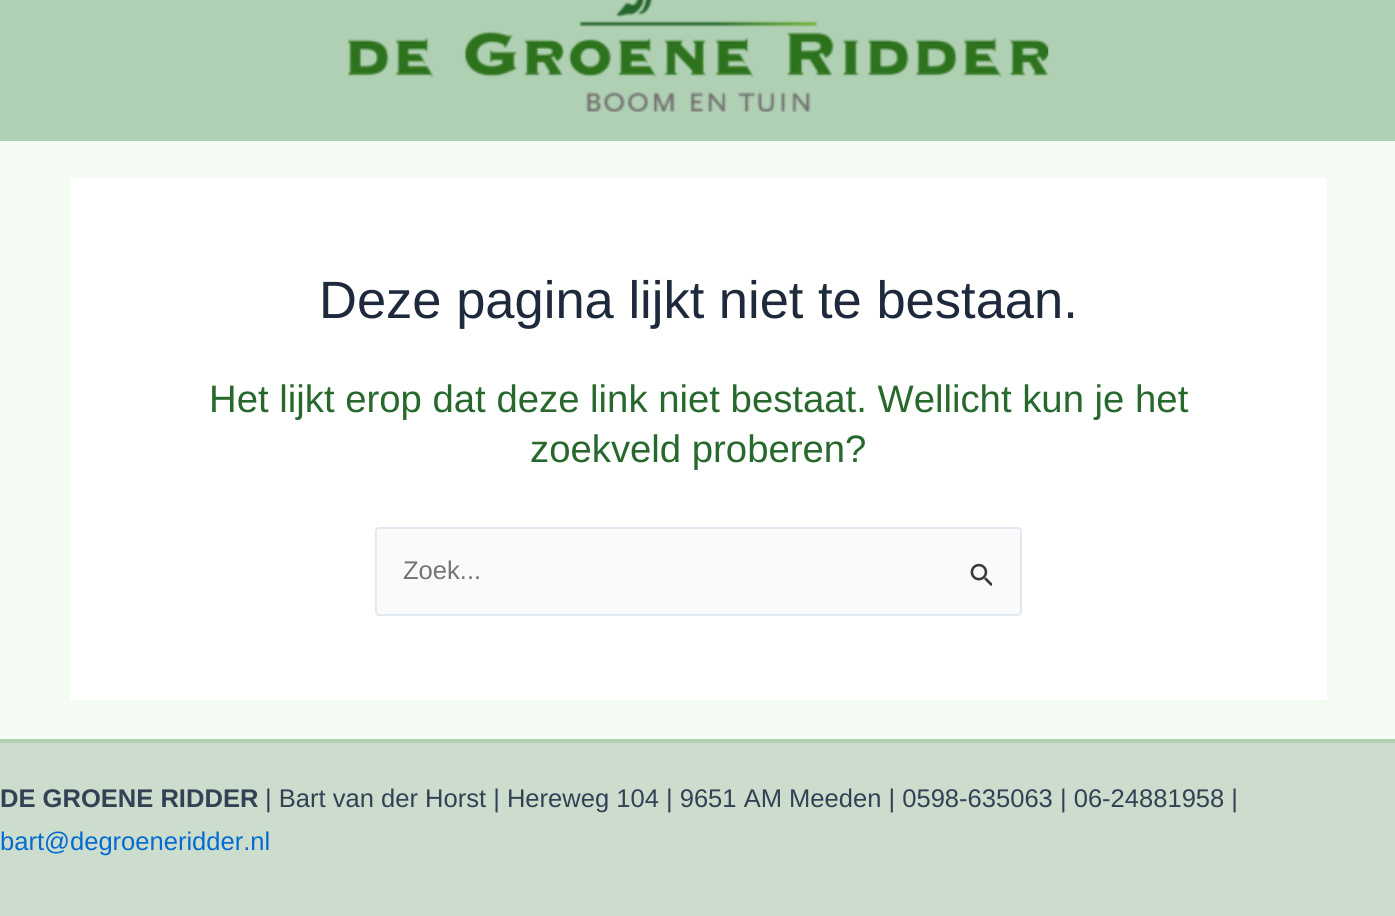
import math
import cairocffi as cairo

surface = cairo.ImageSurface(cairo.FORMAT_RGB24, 1395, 916)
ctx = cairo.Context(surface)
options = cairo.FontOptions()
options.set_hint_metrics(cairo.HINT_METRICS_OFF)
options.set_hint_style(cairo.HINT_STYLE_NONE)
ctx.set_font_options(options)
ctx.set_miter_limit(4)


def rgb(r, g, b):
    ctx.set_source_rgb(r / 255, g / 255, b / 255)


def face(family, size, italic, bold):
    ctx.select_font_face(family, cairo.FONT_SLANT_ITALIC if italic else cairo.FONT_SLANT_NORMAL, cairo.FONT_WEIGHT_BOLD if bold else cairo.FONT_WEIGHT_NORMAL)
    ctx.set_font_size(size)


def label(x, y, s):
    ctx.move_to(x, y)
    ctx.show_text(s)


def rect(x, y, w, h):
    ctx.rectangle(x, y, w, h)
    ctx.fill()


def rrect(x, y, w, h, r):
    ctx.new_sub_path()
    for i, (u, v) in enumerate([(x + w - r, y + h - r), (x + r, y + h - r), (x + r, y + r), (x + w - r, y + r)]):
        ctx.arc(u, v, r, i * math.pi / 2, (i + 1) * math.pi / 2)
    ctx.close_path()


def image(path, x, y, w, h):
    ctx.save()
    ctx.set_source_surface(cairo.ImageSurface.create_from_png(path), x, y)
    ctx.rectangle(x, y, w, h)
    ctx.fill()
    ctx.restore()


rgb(244, 251, 242)
ctx.paint()
rgb(176, 208, 180)
rect(0, 0, 1395, 141)
image('image0.png', 348, 0, 701, 112)
rgb(255, 255, 255)
rect(70, 178, 1257, 522)
face('Liberation Sans', 52.5, 0, 0)
rgb(30, 41, 59)
label(319, 318, 'Deze pagina lijkt niet te bestaan.')
face('Liberation Sans', 38.3, 0, 0)
rgb(39, 104, 45)
label(209, 412, 'Het lijkt erop dat deze link niet bestaat. Wellicht kun je het')
label(530, 462, 'zoekveld proberen?')
rgb(250, 250, 250)
rrect(376, 528, 645, 87, 3)
ctx.fill_preserve()
rgb(226, 232, 240)
ctx.stroke()
face('Liberation Sans', 25.55, 0, 0)
rgb(117, 117, 117)
label(403, 579, 'Zoek...')
image('image1.png', 970, 563, 22, 23)
rgb(204, 221, 205)
rect(0, 743, 1395, 173)
rgb(176, 208, 180)
rect(0, 739, 1395, 4)
face('Liberation Sans', 25.55, 0, 1)
rgb(51, 65, 85)
label(0, 807, 'DE GROENE RIDDER')
face('Liberation Sans', 25.55, 0, 0)
label(265, 807, '| Bart van der Horst | Hereweg 104 | 9651 AM Meeden | 0598-635063 | 06-24881958 |')
rgb(4, 107, 210)
label(0, 850, 'bart@degroeneridder.nl')
surface.write_to_png('render.png')
